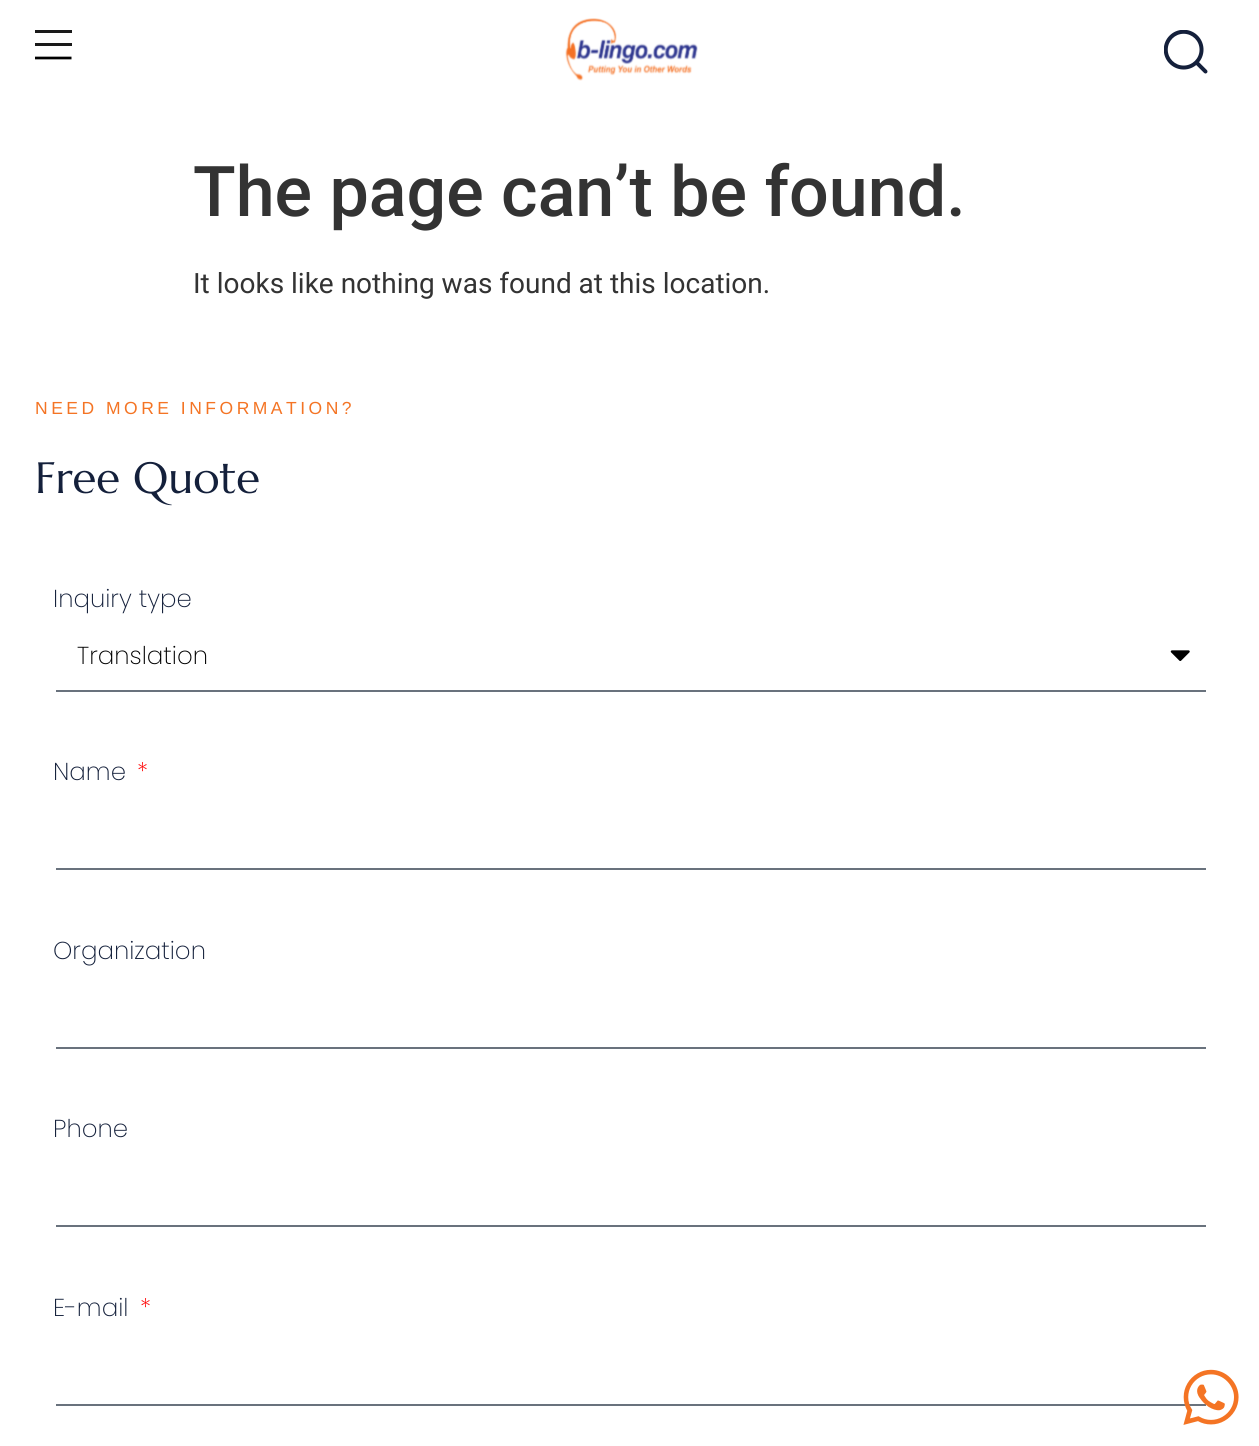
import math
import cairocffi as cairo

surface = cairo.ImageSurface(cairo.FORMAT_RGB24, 1259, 1446)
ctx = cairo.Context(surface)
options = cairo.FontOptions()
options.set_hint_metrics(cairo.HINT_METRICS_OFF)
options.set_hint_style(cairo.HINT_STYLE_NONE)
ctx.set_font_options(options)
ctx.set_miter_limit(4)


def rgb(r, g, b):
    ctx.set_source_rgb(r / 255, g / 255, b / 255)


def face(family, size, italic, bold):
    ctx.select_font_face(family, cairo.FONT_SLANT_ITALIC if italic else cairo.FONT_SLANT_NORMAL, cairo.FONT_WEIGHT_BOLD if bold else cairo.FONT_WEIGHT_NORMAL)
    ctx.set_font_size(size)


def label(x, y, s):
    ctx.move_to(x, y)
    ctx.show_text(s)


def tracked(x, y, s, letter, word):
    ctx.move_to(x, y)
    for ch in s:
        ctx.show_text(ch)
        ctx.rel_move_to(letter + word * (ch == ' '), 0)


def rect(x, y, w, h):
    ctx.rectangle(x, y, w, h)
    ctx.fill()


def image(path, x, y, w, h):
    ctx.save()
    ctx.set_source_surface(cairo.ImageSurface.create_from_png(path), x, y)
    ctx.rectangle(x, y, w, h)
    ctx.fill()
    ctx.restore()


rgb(255, 255, 255)
ctx.paint()
rgb(26, 26, 26)
rect(35, 30, 37, 3)
rect(35, 43, 37, 3)
ctx.new_path()
ctx.move_to(35, 58)
ctx.line_to(71.5, 58)
rgb(0, 0, 0)
ctx.set_line_width(2.7)
ctx.stroke()
image('image0.png', 565, 18, 133, 63)
image('image1.png', 1164, 30, 44, 44)
face('Roboto Medium', 70, 0, 0)
rgb(51, 51, 51)
label(193, 216, 'The page can’t be found.')
face('Roboto', 28, 0, 0)
label(193, 293, 'It looks like nothing was found at this location.')
face('Liberation Sans', 17.5, 0, 0)
rgb(244, 116, 36)
tracked(35, 414, 'NEED MORE INFORMATION?', 3.5, 0)
face('Marcellus', 43.75, 0, 0)
rgb(20, 32, 59)
label(35, 493, 'Free Quote')
face('Poppins ExtraLight', 24.5, 0, 0)
label(53, 607, 'Inquiry type')
rgb(105, 114, 125)
rect(56, 690, 1150, 2)
rgb(0, 0, 0)
label(77, 664, 'Translation')
image('image2.png', 1170, 650, 20, 11)
rgb(20, 32, 59)
label(53, 780, 'Name')
rgb(255, 0, 0)
label(137, 780, '*')
rgb(105, 114, 125)
rect(56, 868, 1150, 2)
rgb(20, 32, 59)
label(53, 959, 'Organization')
rgb(105, 114, 125)
rect(56, 1047, 1150, 2)
rgb(20, 32, 59)
label(53, 1137, 'Phone')
rgb(105, 114, 125)
rect(56, 1225, 1150, 2)
rgb(20, 32, 59)
label(53, 1316, 'E-mail')
rgb(255, 0, 0)
label(140, 1316, '*')
rgb(105, 114, 125)
rect(56, 1404, 1150, 2)
image('image3.png', 1183, 1369, 56, 56)
surface.write_to_png('render.png')
